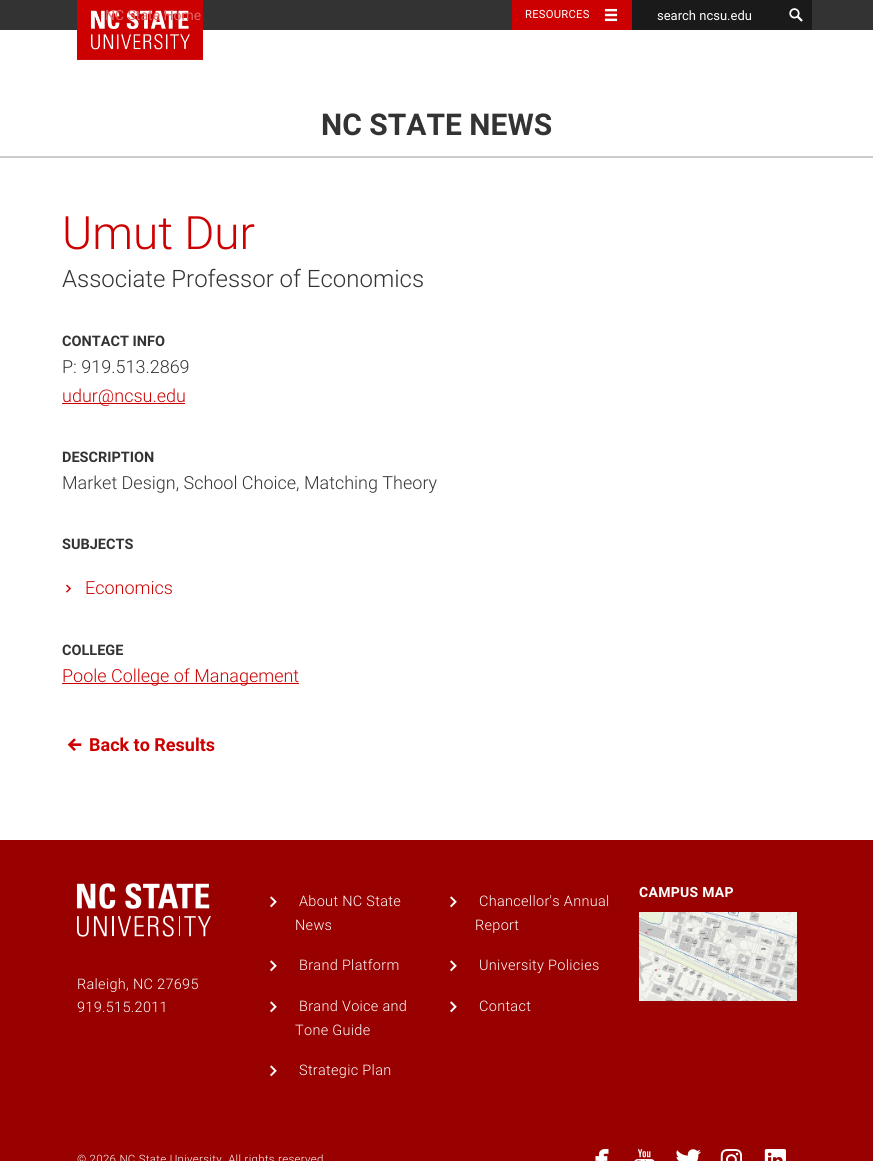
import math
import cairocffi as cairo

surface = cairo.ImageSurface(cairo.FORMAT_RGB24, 873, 1161)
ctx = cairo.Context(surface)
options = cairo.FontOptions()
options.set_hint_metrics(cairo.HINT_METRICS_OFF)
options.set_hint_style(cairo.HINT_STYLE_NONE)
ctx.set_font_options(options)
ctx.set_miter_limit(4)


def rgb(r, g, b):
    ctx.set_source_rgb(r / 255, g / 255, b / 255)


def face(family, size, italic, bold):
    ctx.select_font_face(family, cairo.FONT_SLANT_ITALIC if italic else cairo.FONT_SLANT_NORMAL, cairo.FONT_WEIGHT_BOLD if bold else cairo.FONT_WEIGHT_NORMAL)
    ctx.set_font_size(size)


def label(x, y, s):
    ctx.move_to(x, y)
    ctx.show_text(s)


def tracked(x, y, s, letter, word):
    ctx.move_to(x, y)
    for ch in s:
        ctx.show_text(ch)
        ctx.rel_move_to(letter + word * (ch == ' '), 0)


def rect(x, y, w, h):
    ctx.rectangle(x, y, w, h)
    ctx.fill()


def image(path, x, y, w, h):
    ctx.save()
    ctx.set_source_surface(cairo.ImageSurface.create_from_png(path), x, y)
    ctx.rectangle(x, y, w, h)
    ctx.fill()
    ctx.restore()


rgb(255, 255, 255)
ctx.paint()
rgb(51, 51, 51)
rect(0, 0, 873, 30)
image('image0.png', 77, 0, 126, 60)
face('Roboto', 14, 0, 0)
rgb(224, 101, 101)
label(105, 20, 'NC State Home')
rgb(204, 0, 0)
rect(512, 0, 120, 30)
image('image1.png', 604, 8, 14, 14)
face('Roboto', 11.25, 0, 0)
rgb(255, 255, 255)
tracked(525, 18, 'RESOURCES', 0.25, 0)
rgb(26, 26, 26)
rect(632, 0, 180, 30)
face('Roboto', 13, 0, 0)
rgb(255, 255, 255)
label(657, 20, 'search ncsu.edu')
image('image2.png', 789, 8, 14, 14)
face('Roboto', 30, 0, 1)
rgb(51, 51, 51)
label(321, 135, 'NC STATE NEWS')
rgb(204, 204, 204)
rect(0, 156, 873, 2)
face('Roboto Light', 46, 0, 0)
rgb(204, 0, 0)
label(62, 249, 'Umut Dur')
face('Roboto Light', 24, 0, 0)
rgb(51, 51, 51)
label(62, 287, 'Associate Professor of Economics')
face('Roboto', 14.5, 0, 1)
label(62, 346, 'CONTACT INFO')
face('Roboto Light', 18, 0, 0)
label(62, 373, 'P: 919.513.2869')
rgb(204, 0, 0)
rect(62, 403, 123, 1)
label(62, 402, 'udur@ncsu.edu')
face('Roboto', 14.5, 0, 1)
rgb(51, 51, 51)
label(62, 462, 'DESCRIPTION')
face('Roboto Light', 18, 0, 0)
label(62, 489, 'Market Design, School Choice, Matching Theory')
face('Roboto', 14.5, 0, 1)
label(62, 549, 'SUBJECTS')
image('image3.png', 66, 584, 5, 9)
face('Roboto Light', 18, 0, 0)
rgb(204, 0, 0)
label(85, 594, 'Economics')
face('Roboto', 14.5, 0, 1)
rgb(51, 51, 51)
label(62, 655, 'COLLEGE')
rgb(204, 0, 0)
rect(62, 683, 237, 1)
face('Roboto Light', 18, 0, 0)
label(62, 682, 'Poole College of Management')
image('image4.png', 67, 738, 15, 13)
face('Roboto', 18, 0, 1)
label(89, 751, 'Back to Results')
rgb(153, 0, 0)
rect(0, 840, 873, 321)
face('Roboto', 14, 0, 1)
rgb(255, 255, 255)
tracked(639, 897, 'CAMPUS MAP', 0.3, 0)
image('image5.png', 639, 912, 158, 89)
image('image6.png', 77, 883, 134, 54)
face('Roboto Light', 14.5, 0, 0)
tracked(77, 989, 'Raleigh, NC 27695', 0.3, 0)
tracked(77, 1012, '919.515.2011', 0.3, 0)
image('image7.png', 270, 896, 7, 12)
tracked(299, 906, 'About NC State', 0.3, 0)
tracked(295, 930, 'News', 0.3, 0)
image('image7.png', 270, 960, 7, 12)
tracked(299, 970, 'Brand Platform', 0.3, 0)
image('image7.png', 270, 1001, 7, 12)
tracked(299, 1011, 'Brand Voice and', 0.3, 0)
tracked(295, 1035, 'Tone Guide', 0.3, 0)
image('image7.png', 270, 1065, 7, 12)
tracked(299, 1075, 'Strategic Plan', 0.3, 0)
image('image7.png', 450, 896, 7, 12)
tracked(479, 906, 'Chancellor\'s Annual', 0.3, 0)
tracked(475, 930, 'Report', 0.3, 0)
image('image7.png', 450, 960, 7, 12)
tracked(479, 970, 'University Policies', 0.3, 0)
image('image7.png', 450, 1001, 7, 12)
tracked(479, 1011, 'Contact', 0.3, 0)
face('Roboto Light', 11.5, 0, 0)
tracked(77, 1163, '© 2026 NC State University. All rights reserved', 0.3, 0)
image('image8.png', 595, 1149, 14, 12)
image('image9.png', 634, 1149, 21, 12)
image('image10.png', 676, 1149, 25, 12)
image('image11.png', 720, 1149, 23, 12)
image('image12.png', 764, 1149, 22, 12)
surface.write_to_png('render.png')
